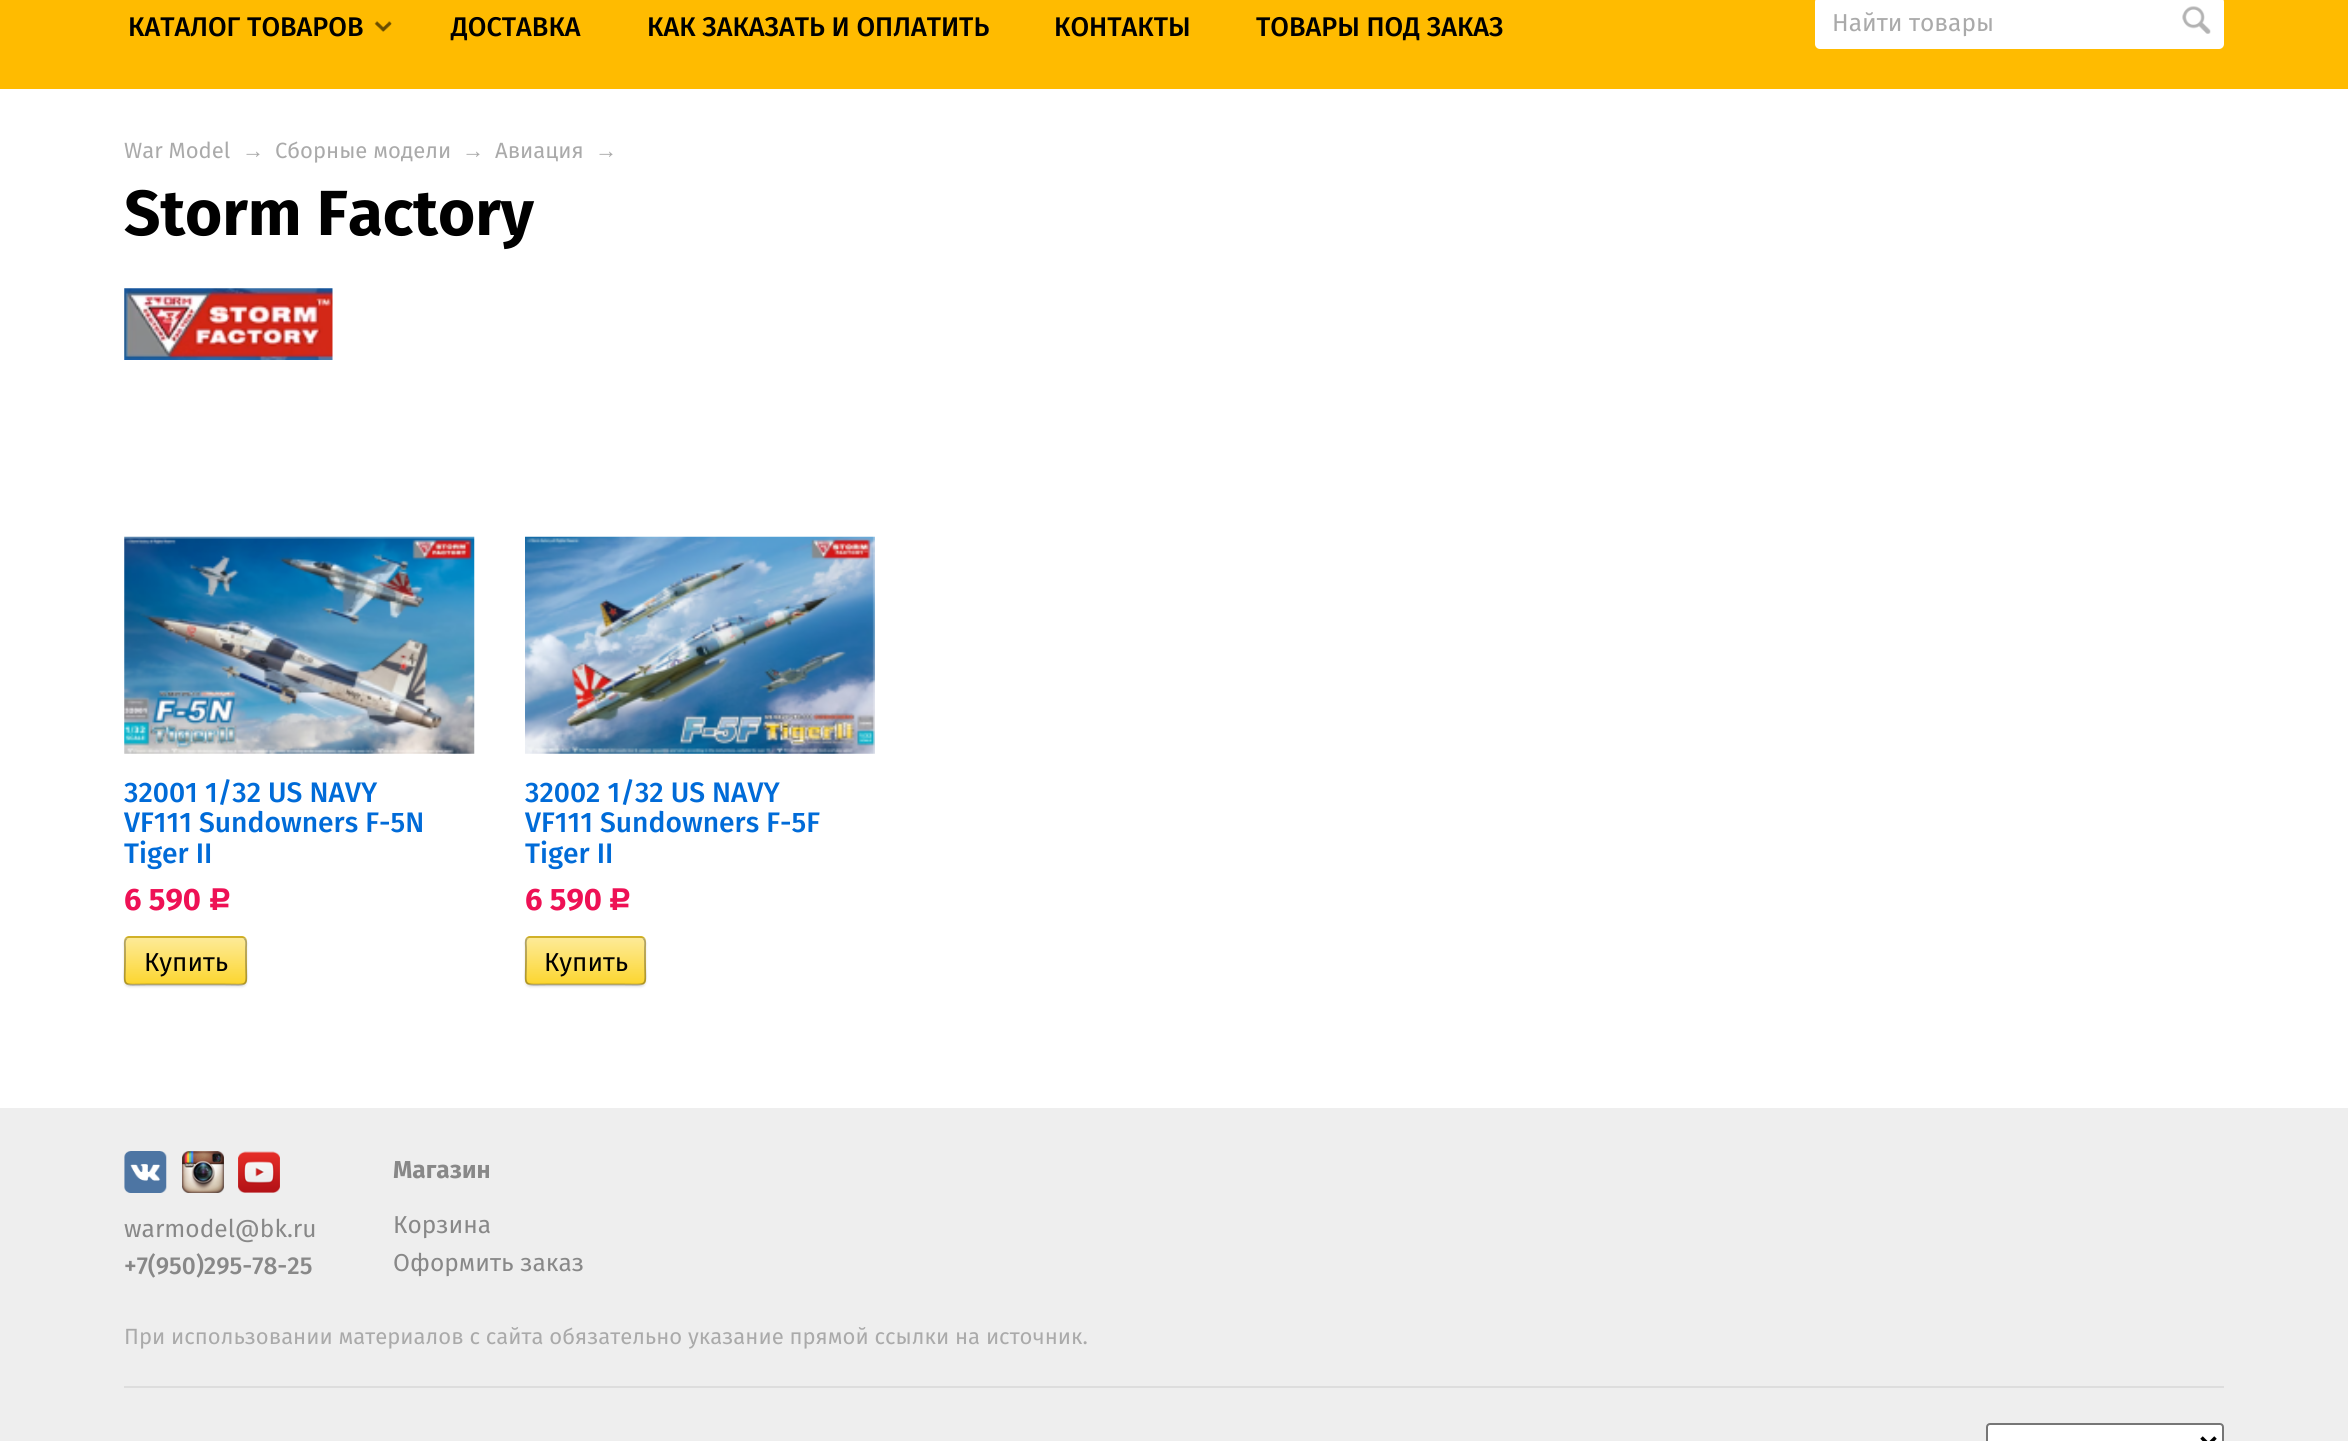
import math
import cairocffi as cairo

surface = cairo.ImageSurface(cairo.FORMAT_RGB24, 2348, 1441)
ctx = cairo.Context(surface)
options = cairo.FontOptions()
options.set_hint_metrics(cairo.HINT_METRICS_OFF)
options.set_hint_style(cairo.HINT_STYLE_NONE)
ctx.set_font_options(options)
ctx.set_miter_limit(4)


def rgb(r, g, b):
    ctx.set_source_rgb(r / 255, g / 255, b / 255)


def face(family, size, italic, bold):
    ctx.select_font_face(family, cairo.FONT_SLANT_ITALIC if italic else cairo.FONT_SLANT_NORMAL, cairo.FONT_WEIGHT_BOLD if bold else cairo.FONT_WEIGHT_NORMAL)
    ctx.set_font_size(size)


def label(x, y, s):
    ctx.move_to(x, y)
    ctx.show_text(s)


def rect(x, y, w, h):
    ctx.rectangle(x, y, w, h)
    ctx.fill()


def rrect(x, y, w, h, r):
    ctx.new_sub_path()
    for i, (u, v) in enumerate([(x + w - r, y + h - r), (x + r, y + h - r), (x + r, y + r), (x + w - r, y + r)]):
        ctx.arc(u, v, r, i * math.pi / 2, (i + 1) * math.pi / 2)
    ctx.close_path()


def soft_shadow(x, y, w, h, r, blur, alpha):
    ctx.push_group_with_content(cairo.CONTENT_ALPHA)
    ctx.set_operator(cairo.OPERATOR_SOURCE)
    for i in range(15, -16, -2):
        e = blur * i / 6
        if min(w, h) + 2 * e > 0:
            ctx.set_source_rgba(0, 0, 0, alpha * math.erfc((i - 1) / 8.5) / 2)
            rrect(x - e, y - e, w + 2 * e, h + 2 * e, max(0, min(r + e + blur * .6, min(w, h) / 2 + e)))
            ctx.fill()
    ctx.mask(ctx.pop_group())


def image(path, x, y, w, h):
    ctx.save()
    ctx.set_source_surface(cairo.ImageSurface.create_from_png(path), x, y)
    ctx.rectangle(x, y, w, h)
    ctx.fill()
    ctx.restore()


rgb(238, 238, 238)
ctx.paint()
rgb(255, 187, 0)
rect(0, 0, 2348, 89)
image('image0.png', 374, 21, 18, 11)
face('Fira Sans Medium', 27, 0, 0)
rgb(0, 0, 0)
label(128, 36, 'КАТАЛОГ ТОВАРОВ')
label(451, 36, 'ДОСТАВКА')
label(647, 36, 'КАК ЗАКАЗАТЬ И ОПЛАТИТЬ')
label(1054, 36, 'КОНТАКТЫ')
label(1256, 36, 'ТОВАРЫ ПОД ЗАКАЗ')
rgb(255, 255, 255)
rrect(1815, -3, 409, 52, 5)
ctx.fill()
face('Fira Sans', 24.5, 0, 0)
rgb(170, 170, 170)
label(1832, 31, 'Найти товары')
image('image1.png', 2182, 6, 29, 28)
rgb(255, 255, 255)
rect(0, 89, 2348, 1019)
face('Fira Sans', 22.05, 0, 0)
rgb(170, 170, 170)
label(124, 158, 'War Model')
face('Liberation Sans', 22.05, 0, 0)
label(242, 158, '→')
face('Fira Sans', 22.05, 0, 0)
label(275, 158, 'Сборные модели')
face('Liberation Sans', 22.05, 0, 0)
label(462, 158, '→')
face('Fira Sans', 22.05, 0, 0)
label(495, 158, 'Авиация')
face('Liberation Sans', 22.05, 0, 0)
label(595, 158, '→')
face('Fira Sans', 63.75, 0, 1)
rgb(0, 0, 0)
label(124, 235, 'Storm Factory')
image('image2.png', 124, 288, 209, 72)
image('image3.png', 124, 536, 351, 218)
face('Fira Sans Medium', 28.25, 0, 0)
rgb(0, 107, 216)
label(124, 802, '32001 1/32 US NAVY')
label(124, 832, 'VF111 Sundowners F-5N')
label(124, 863, 'Tiger II')
face('Fira Sans', 31, 0, 1)
rgb(238, 17, 85)
label(124, 910, '6 590')
face('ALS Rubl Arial', 31, 0, 1)
label(208, 910, 'Р')
rgb(0, 0, 0)
soft_shadow(124, 938, 123, 49, 5, 1, 0.1)
rgb(252, 214, 48)
rrect(124, 936, 123, 49, 5)
ctx.fill()
ctx.save()
rrect(124, 936, 123, 49, 5)
ctx.clip()
gradient = cairo.LinearGradient(186, 938, 186, 984)
gradient.add_color_stop_rgba(0, 1, 1, 1, 0.5)
gradient.add_color_stop_rgba(1, 1, 1, 1, 0)
ctx.set_source(gradient)
rect(124, 938, 123, 44)
gradient = cairo.LinearGradient(186, 984, 186, 1029)
gradient.add_color_stop_rgba(0, 1, 1, 1, 0.5)
gradient.add_color_stop_rgba(1, 1, 1, 1, 0)
ctx.set_source(gradient)
rect(124, 984, 123, 1)
ctx.restore()
ctx.new_path()
ctx.move_to(126.5, 938.5)
ctx.curve_to(127, 937.5, 128.5, 937, 129.5, 937)
ctx.line_to(241.5, 937)
ctx.curve_to(242.5, 937, 244, 937.5, 244.5, 938.5)
ctx.set_source_rgba(0, 0, 0, 0.2)
ctx.set_line_width(1.8)
ctx.stroke()
ctx.new_path()
ctx.move_to(244.5, 938.5)
ctx.curve_to(247, 940.5, 246, 945.5, 246, 948)
ctx.line_to(246, 961)
ctx.curve_to(246, 988.5, 251, 984.5, 223, 984.5)
ctx.line_to(148, 984.5)
ctx.curve_to(120, 984.5, 125, 988.5, 125, 961)
ctx.line_to(125, 948)
ctx.curve_to(125, 945.5, 124, 940.5, 126.5, 938.5)
ctx.set_source_rgba(0, 0, 0, 0.3)
ctx.stroke()
face('Fira Sans', 26, 0, 0)
rgb(0, 0, 0)
label(144, 971, 'Купить')
image('image4.png', 525, 536, 350, 218)
face('Fira Sans Medium', 28.25, 0, 0)
rgb(0, 107, 216)
label(525, 802, '32002 1/32 US NAVY')
label(525, 832, 'VF111 Sundowners F-5F')
label(525, 863, 'Tiger II')
face('Fira Sans', 31, 0, 1)
rgb(238, 17, 85)
label(525, 910, '6 590')
face('ALS Rubl Arial', 31, 0, 1)
label(608, 910, 'Р')
rgb(0, 0, 0)
soft_shadow(525, 938, 121, 49, 5, 1, 0.1)
rgb(252, 214, 48)
rrect(525, 936, 121, 49, 5)
ctx.fill()
ctx.save()
rrect(525, 936, 121, 49, 5)
ctx.clip()
gradient = cairo.LinearGradient(585, 938, 585, 984)
gradient.add_color_stop_rgba(0, 1, 1, 1, 0.5)
gradient.add_color_stop_rgba(1, 1, 1, 1, 0)
ctx.set_source(gradient)
rect(525, 938, 121, 44)
gradient = cairo.LinearGradient(585, 984, 585, 1029)
gradient.add_color_stop_rgba(0, 1, 1, 1, 0.5)
gradient.add_color_stop_rgba(1, 1, 1, 1, 0)
ctx.set_source(gradient)
rect(525, 984, 121, 1)
ctx.restore()
ctx.new_path()
ctx.move_to(527, 938.5)
ctx.curve_to(528, 937.5, 529, 937, 530, 937)
ctx.line_to(640.5, 937)
ctx.curve_to(641.5, 937, 643, 937.5, 643.5, 938.5)
ctx.set_source_rgba(0, 0, 0, 0.2)
ctx.stroke()
ctx.new_path()
ctx.move_to(643.5, 938.5)
ctx.curve_to(646, 940.5, 645, 945.5, 645, 948)
ctx.line_to(645, 961)
ctx.curve_to(645, 988, 650, 984.5, 622, 984.5)
ctx.line_to(548.5, 984.5)
ctx.curve_to(521, 984.5, 526, 988, 526, 961)
ctx.line_to(526, 948)
ctx.curve_to(526, 945.5, 525, 940.5, 527, 938.5)
ctx.set_source_rgba(0, 0, 0, 0.3)
ctx.stroke()
face('Fira Sans', 26, 0, 0)
rgb(0, 0, 0)
label(544, 971, 'Купить')
image('image5.png', 124, 1151, 43, 42)
image('image6.png', 182, 1151, 42, 42)
image('image7.png', 238, 1151, 42, 42)
face('Fira Sans', 24.5, 0, 0)
rgb(136, 136, 136)
label(124, 1237, 'warmodel@bk.ru')
face('Fira Sans Medium', 24.5, 0, 0)
label(124, 1274, '+7(950)295-78-25')
face('Fira Sans', 24.5, 0, 1)
label(393, 1178, 'Магазин')
face('Fira Sans', 24.5, 0, 0)
label(393, 1233, 'Корзина')
label(393, 1271, 'Оформить заказ')
face('Fira Sans', 22.05, 0, 0)
rgb(170, 170, 170)
label(124, 1344, 'При использовании материалов с сайта обязательно указание прямой ссылки на источник.')
rgb(221, 221, 221)
rect(124, 1386, 2100, 2)
rgb(255, 255, 255)
rrect(1987, 1424, 236, 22, 3)
ctx.fill_preserve()
rgb(118, 118, 118)
ctx.set_line_width(2)
ctx.stroke()
ctx.new_path()
ctx.move_to(2201.5, 1437.5)
ctx.line_to(2208.5, 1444.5)
ctx.line_to(2215.5, 1437.5)
rgb(0, 0, 0)
ctx.set_line_width(3.5)
ctx.stroke()
surface.write_to_png('render.png')
